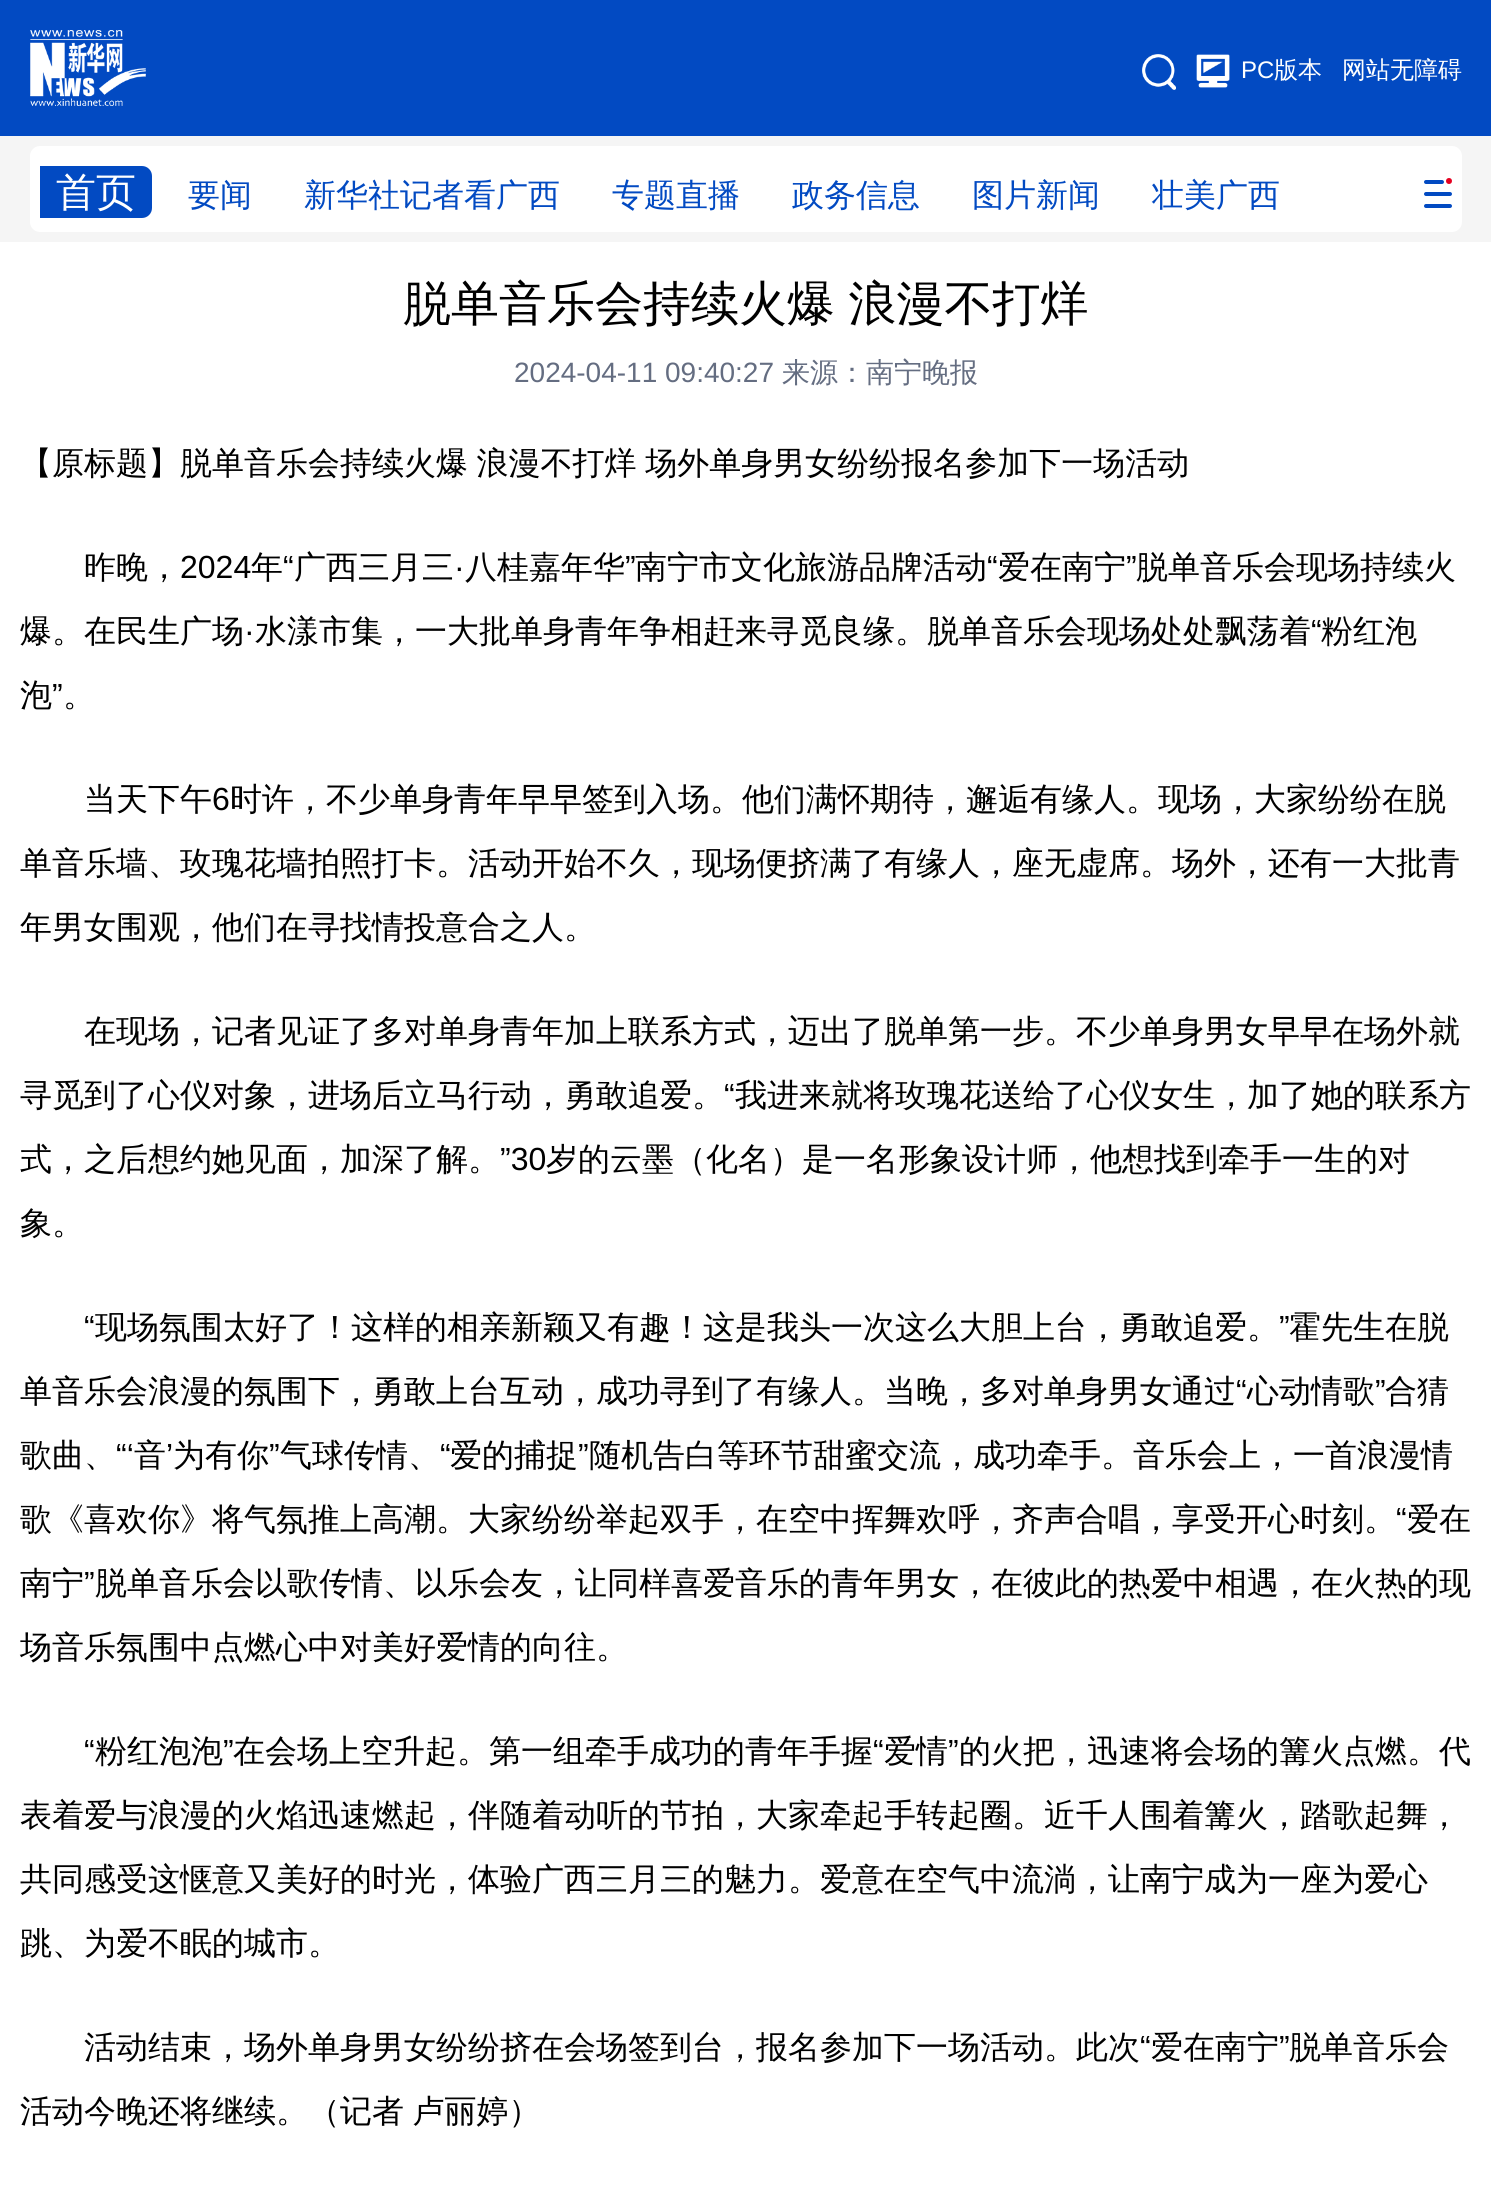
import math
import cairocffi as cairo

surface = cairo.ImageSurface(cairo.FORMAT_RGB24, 1491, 2187)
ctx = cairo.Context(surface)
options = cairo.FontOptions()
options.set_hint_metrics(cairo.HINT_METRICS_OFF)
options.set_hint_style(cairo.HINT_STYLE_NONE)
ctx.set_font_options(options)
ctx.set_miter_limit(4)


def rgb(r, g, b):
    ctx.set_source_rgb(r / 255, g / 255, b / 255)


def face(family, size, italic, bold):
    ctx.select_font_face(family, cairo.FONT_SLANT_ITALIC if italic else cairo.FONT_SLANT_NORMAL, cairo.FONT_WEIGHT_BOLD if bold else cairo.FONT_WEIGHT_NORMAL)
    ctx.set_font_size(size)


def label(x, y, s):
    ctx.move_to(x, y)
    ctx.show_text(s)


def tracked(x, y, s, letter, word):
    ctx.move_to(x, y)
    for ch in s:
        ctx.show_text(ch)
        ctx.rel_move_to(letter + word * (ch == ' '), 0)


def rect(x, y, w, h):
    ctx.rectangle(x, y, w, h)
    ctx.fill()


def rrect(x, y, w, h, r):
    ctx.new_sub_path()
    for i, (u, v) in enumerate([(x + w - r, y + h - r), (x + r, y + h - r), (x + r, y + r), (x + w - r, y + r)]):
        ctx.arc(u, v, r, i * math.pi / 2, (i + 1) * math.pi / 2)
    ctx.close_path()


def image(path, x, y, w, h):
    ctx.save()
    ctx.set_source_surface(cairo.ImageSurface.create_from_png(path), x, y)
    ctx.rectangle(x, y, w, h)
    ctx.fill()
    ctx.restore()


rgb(255, 255, 255)
ctx.paint()
rgb(2, 74, 194)
rect(0, 0, 1491, 136)
image('image0.png', 30, 30, 116, 76)
image('image1.png', 1142, 54, 34, 36)
image('image2.png', 1196, 54, 34, 34)
face('Liberation Sans', 24, 0, 0)
rgb(255, 255, 255)
label(1241, 78, 'PC')
face('WenQuanYi Zen Hei Medium', 24, 0, 0)
label(1274, 78, '版本')
label(1342, 78, '网站无障碍')
rgb(245, 245, 245)
rect(0, 136, 1491, 106)
rgb(255, 255, 255)
rrect(30, 146, 1432, 86, 10)
ctx.fill()
rgb(2, 74, 194)
ctx.new_path()
ctx.move_to(40, 166)
ctx.line_to(142, 166)
ctx.curve_to(147.5, 166, 152, 170.5, 152, 176)
ctx.line_to(152, 208)
ctx.curve_to(152, 213.5, 147.5, 218, 142, 218)
ctx.line_to(40, 218)
ctx.close_path()
ctx.fill()
face('WenQuanYi Zen Hei Medium', 40, 0, 0)
rgb(255, 255, 255)
label(56, 206, '首页')
face('WenQuanYi Zen Hei Medium', 32, 0, 0)
rgb(2, 74, 194)
label(188, 206, '要闻')
label(304, 206, '新华社记者看广西')
label(612, 206, '专题直播')
label(792, 206, '政务信息')
label(972, 206, '图片新闻')
label(1152, 206, '壮美广西')
rrect(1424, 180, 20, 4, 2)
ctx.fill()
rgb(229, 0, 32)
ctx.arc(1449, 181, 3, 0, 2 * math.pi)
ctx.fill()
rgb(2, 74, 194)
rrect(1424, 192, 28, 4, 2)
ctx.fill()
rrect(1424, 204, 28, 4, 2)
ctx.fill()
face('WenQuanYi Zen Hei Medium', 48, 0, 0)
rgb(0, 0, 0)
tracked(403, 320, '脱单音乐会持续火爆 浪漫不打烊', 0, -1)
face('Liberation Sans', 28, 0, 0)
rgb(100, 109, 129)
label(514, 382, '2024-04-11 09:40:27')
face('WenQuanYi Zen Hei Medium', 28, 0, 0)
label(782, 382, '来源：南宁晚报')
face('WenQuanYi Zen Hei Medium', 32, 0, 0)
rgb(0, 0, 0)
tracked(20, 474, '【原标题】脱单音乐会持续火爆 浪漫不打烊 场外单身男女纷纷报名参加下一场活动', 0, -1)
label(84, 578, '昨晚，')
face('Liberation Sans', 32, 0, 0)
label(180, 578, '2024')
face('WenQuanYi Zen Hei Medium', 32, 0, 0)
label(251, 578, '年')
face('Liberation Sans', 32, 0, 0)
label(283, 578, '“')
face('WenQuanYi Zen Hei Medium', 32, 0, 0)
label(294, 578, '广西三月三')
label(465, 578, '八桂嘉年华')
face('Liberation Sans', 32, 0, 0)
label(625, 578, '”')
face('WenQuanYi Zen Hei Medium', 32, 0, 0)
label(635, 578, '南宁市文化旅游品牌活动')
face('Liberation Sans', 32, 0, 0)
label(987, 578, '“')
face('WenQuanYi Zen Hei Medium', 32, 0, 0)
label(998, 578, '爱在南宁')
face('Liberation Sans', 32, 0, 0)
label(1126, 578, '”')
face('WenQuanYi Zen Hei Medium', 32, 0, 0)
label(1136, 578, '脱单音乐会现场持续火')
face('Liberation Sans', 32, 0, 0)
label(454, 578, '·')
face('WenQuanYi Zen Hei Medium', 32, 0, 0)
label(20, 642, '爆。在民生广场')
label(255, 642, '水漾市集，一大批单身青年争相赶来寻觅良缘。脱单音乐会现场处处飘荡着')
face('Liberation Sans', 32, 0, 0)
label(1311, 642, '“')
face('WenQuanYi Zen Hei Medium', 32, 0, 0)
label(1321, 642, '粉红泡')
face('Liberation Sans', 32, 0, 0)
label(244, 642, '·')
face('WenQuanYi Zen Hei Medium', 32, 0, 0)
label(20, 706, '泡')
face('Liberation Sans', 32, 0, 0)
label(52, 706, '”')
face('WenQuanYi Zen Hei Medium', 32, 0, 0)
label(63, 706, '。')
label(84, 810, '当天下午')
face('Liberation Sans', 32, 0, 0)
label(212, 810, '6')
face('WenQuanYi Zen Hei Medium', 32, 0, 0)
label(230, 810, '时许，不少单身青年早早签到入场。他们满怀期待，邂逅有缘人。现场，大家纷纷在脱')
label(20, 874, '单音乐墙、玫瑰花墙拍照打卡。活动开始不久，现场便挤满了有缘人，座无虚席。场外，还有一大批青')
label(20, 938, '年男女围观，他们在寻找情投意合之人。')
label(84, 1042, '在现场，记者见证了多对单身青年加上联系方式，迈出了脱单第一步。不少单身男女早早在场外就')
label(20, 1106, '寻觅到了心仪对象，进场后立马行动，勇敢追爱。')
face('Liberation Sans', 32, 0, 0)
label(724, 1106, '“')
face('WenQuanYi Zen Hei Medium', 32, 0, 0)
label(735, 1106, '我进来就将玫瑰花送给了心仪女生，加了她的联系方')
label(20, 1170, '式，之后想约她见面，加深了解。')
face('Liberation Sans', 32, 0, 0)
label(500, 1170, '”30')
face('WenQuanYi Zen Hei Medium', 32, 0, 0)
label(546, 1170, '岁的云墨（化名）是一名形象设计师，他想找到牵手一生的对')
label(20, 1234, '象。')
face('Liberation Sans', 32, 0, 0)
label(84, 1338, '“')
face('WenQuanYi Zen Hei Medium', 32, 0, 0)
label(95, 1338, '现场氛围太好了！这样的相亲新颖又有趣！这是我头一次这么大胆上台，勇敢追爱。')
face('Liberation Sans', 32, 0, 0)
label(1279, 1338, '”')
face('WenQuanYi Zen Hei Medium', 32, 0, 0)
label(1289, 1338, '霍先生在脱')
label(20, 1402, '单音乐会浪漫的氛围下，勇敢上台互动，成功寻到了有缘人。当晚，多对单身男女通过')
face('Liberation Sans', 32, 0, 0)
label(1236, 1402, '“')
face('WenQuanYi Zen Hei Medium', 32, 0, 0)
label(1247, 1402, '心动情歌')
face('Liberation Sans', 32, 0, 0)
label(1375, 1402, '”')
face('WenQuanYi Zen Hei Medium', 32, 0, 0)
label(1385, 1402, '合猜')
label(20, 1466, '歌曲、')
face('Liberation Sans', 32, 0, 0)
label(116, 1466, '“‘')
face('WenQuanYi Zen Hei Medium', 32, 0, 0)
label(134, 1466, '音')
face('Liberation Sans', 32, 0, 0)
label(166, 1466, '’')
face('WenQuanYi Zen Hei Medium', 32, 0, 0)
label(173, 1466, '为有你')
face('Liberation Sans', 32, 0, 0)
label(269, 1466, '”')
face('WenQuanYi Zen Hei Medium', 32, 0, 0)
label(280, 1466, '气球传情、')
face('Liberation Sans', 32, 0, 0)
label(440, 1466, '“')
face('WenQuanYi Zen Hei Medium', 32, 0, 0)
label(450, 1466, '爱的捕捉')
face('Liberation Sans', 32, 0, 0)
label(578, 1466, '”')
face('WenQuanYi Zen Hei Medium', 32, 0, 0)
label(589, 1466, '随机告白等环节甜蜜交流，成功牵手。音乐会上，一首浪漫情')
label(20, 1530, '歌《喜欢你》将气氛推上高潮。大家纷纷举起双手，在空中挥舞欢呼，齐声合唱，享受开心时刻。')
face('Liberation Sans', 32, 0, 0)
label(1396, 1530, '“')
face('WenQuanYi Zen Hei Medium', 32, 0, 0)
label(1407, 1530, '爱在')
label(20, 1594, '南宁')
face('Liberation Sans', 32, 0, 0)
label(84, 1594, '”')
face('WenQuanYi Zen Hei Medium', 32, 0, 0)
label(95, 1594, '脱单音乐会以歌传情、以乐会友，让同样喜爱音乐的青年男女，在彼此的热爱中相遇，在火热的现')
label(20, 1658, '场音乐氛围中点燃心中对美好爱情的向往。')
face('Liberation Sans', 32, 0, 0)
label(84, 1762, '“')
face('WenQuanYi Zen Hei Medium', 32, 0, 0)
label(95, 1762, '粉红泡泡')
face('Liberation Sans', 32, 0, 0)
label(223, 1762, '”')
face('WenQuanYi Zen Hei Medium', 32, 0, 0)
label(233, 1762, '在会场上空升起。第一组牵手成功的青年手握')
face('Liberation Sans', 32, 0, 0)
label(873, 1762, '“')
face('WenQuanYi Zen Hei Medium', 32, 0, 0)
label(884, 1762, '爱情')
face('Liberation Sans', 32, 0, 0)
label(948, 1762, '”')
face('WenQuanYi Zen Hei Medium', 32, 0, 0)
label(959, 1762, '的火把，迅速将会场的篝火点燃。代')
label(20, 1826, '表着爱与浪漫的火焰迅速燃起，伴随着动听的节拍，大家牵起手转起圈。近千人围着篝火，踏歌起舞，')
label(20, 1890, '共同感受这惬意又美好的时光，体验广西三月三的魅力。爱意在空气中流淌，让南宁成为一座为爱心')
label(20, 1954, '跳、为爱不眠的城市。')
label(84, 2058, '活动结束，场外单身男女纷纷挤在会场签到台，报名参加下一场活动。此次')
face('Liberation Sans', 32, 0, 0)
label(1140, 2058, '“')
face('WenQuanYi Zen Hei Medium', 32, 0, 0)
label(1151, 2058, '爱在南宁')
face('Liberation Sans', 32, 0, 0)
label(1279, 2058, '”')
face('WenQuanYi Zen Hei Medium', 32, 0, 0)
label(1289, 2058, '脱单音乐会')
tracked(20, 2122, '活动今晚还将继续。（记者 卢丽婷）', 0, -1)
surface.write_to_png('render.png')
